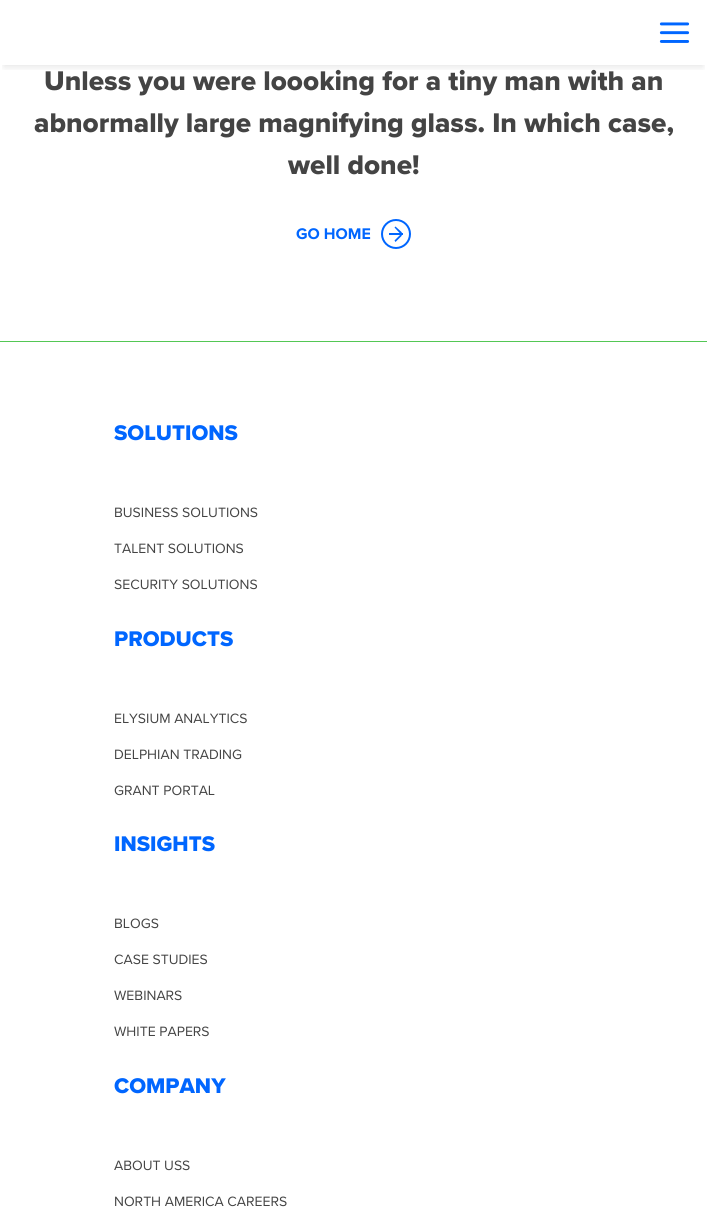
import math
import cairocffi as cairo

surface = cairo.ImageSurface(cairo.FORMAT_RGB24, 707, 1219)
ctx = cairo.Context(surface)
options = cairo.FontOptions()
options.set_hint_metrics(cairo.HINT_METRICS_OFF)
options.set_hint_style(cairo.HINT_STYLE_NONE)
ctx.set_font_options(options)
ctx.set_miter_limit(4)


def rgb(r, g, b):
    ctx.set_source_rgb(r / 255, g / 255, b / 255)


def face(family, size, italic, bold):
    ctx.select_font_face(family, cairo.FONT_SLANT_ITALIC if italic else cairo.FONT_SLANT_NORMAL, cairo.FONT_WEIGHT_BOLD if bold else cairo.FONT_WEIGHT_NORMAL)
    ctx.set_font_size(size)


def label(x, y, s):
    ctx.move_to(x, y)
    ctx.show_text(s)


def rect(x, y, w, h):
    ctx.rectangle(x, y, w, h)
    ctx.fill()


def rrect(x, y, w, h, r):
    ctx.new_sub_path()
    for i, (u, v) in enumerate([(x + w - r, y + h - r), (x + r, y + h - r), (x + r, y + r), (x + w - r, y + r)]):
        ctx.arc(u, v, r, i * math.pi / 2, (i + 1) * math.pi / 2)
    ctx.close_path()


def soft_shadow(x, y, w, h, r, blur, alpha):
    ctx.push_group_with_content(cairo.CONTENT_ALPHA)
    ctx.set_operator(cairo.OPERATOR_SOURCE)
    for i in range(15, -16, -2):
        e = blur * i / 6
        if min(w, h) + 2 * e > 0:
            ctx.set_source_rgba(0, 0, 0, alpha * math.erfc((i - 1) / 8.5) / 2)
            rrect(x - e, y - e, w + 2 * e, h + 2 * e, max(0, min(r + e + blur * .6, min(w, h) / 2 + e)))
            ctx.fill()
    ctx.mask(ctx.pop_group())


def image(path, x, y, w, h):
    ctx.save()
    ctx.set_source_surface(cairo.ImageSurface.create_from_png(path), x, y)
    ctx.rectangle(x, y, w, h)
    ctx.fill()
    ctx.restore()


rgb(255, 255, 255)
ctx.paint()
ctx.save()
ctx.rectangle(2, 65, 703, 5)
ctx.clip()
rgb(0, 0, 0)
soft_shadow(4, 10, 699, 57, 0, 3.5, 0.1)
ctx.restore()
image('image0.png', 659, 22, 31, 21)
face('Proxima Nova ExtraBold', 28, 0, 0)
rgb(68, 68, 68)
label(44, 90, 'Unless you were loooking for a tiny man with an')
label(34, 132, 'abnormally large magnifying glass. In which case,')
label(288, 174, 'well done!')
face('Proxima Nova', 16, 0, 1)
rgb(0, 102, 255)
label(296, 239, 'GO HOME')
ctx.new_path()
ctx.arc(396, 234, 14, 0, 2 * math.pi)
ctx.stroke()
rect(389, 233, 14, 2)
ctx.new_path()
ctx.move_to(394.5, 240.5)
ctx.line_to(400.5, 234.5)
ctx.line_to(402, 235.5)
ctx.line_to(395.5, 242)
ctx.close_path()
ctx.move_to(395.5, 226.5)
ctx.line_to(402, 232.5)
ctx.line_to(400.5, 234)
ctx.line_to(394.5, 227.5)
ctx.close_path()
ctx.fill()
rgb(83, 199, 85)
rect(0, 341, 707, 1)
face('Proxima Nova ExtraBold', 22, 0, 0)
rgb(0, 102, 255)
label(114, 440, 'SOLUTIONS')
face('Proxima Nova', 14, 0, 0)
rgb(68, 68, 68)
label(114, 517, 'BUSINESS SOLUTIONS')
label(114, 553, 'TALENT SOLUTIONS')
label(114, 589, 'SECURITY SOLUTIONS')
face('Proxima Nova ExtraBold', 22, 0, 0)
rgb(0, 102, 255)
label(114, 646, 'PRODUCTS')
face('Proxima Nova', 14, 0, 0)
rgb(68, 68, 68)
label(114, 723, 'ELYSIUM ANALYTICS')
label(114, 759, 'DELPHIAN TRADING')
label(114, 795, 'GRANT PORTAL')
face('Proxima Nova ExtraBold', 22, 0, 0)
rgb(0, 102, 255)
label(114, 851, 'INSIGHTS')
face('Proxima Nova', 14, 0, 0)
rgb(68, 68, 68)
label(114, 928, 'BLOGS')
label(114, 964, 'CASE STUDIES')
label(114, 1000, 'WEBINARS')
label(114, 1036, 'WHITE PAPERS')
face('Proxima Nova ExtraBold', 22, 0, 0)
rgb(0, 102, 255)
label(114, 1093, 'COMPANY')
face('Proxima Nova', 14, 0, 0)
rgb(68, 68, 68)
label(114, 1170, 'ABOUT USS')
label(114, 1206, 'NORTH AMERICA CAREERS')
surface.write_to_png('render.png')
